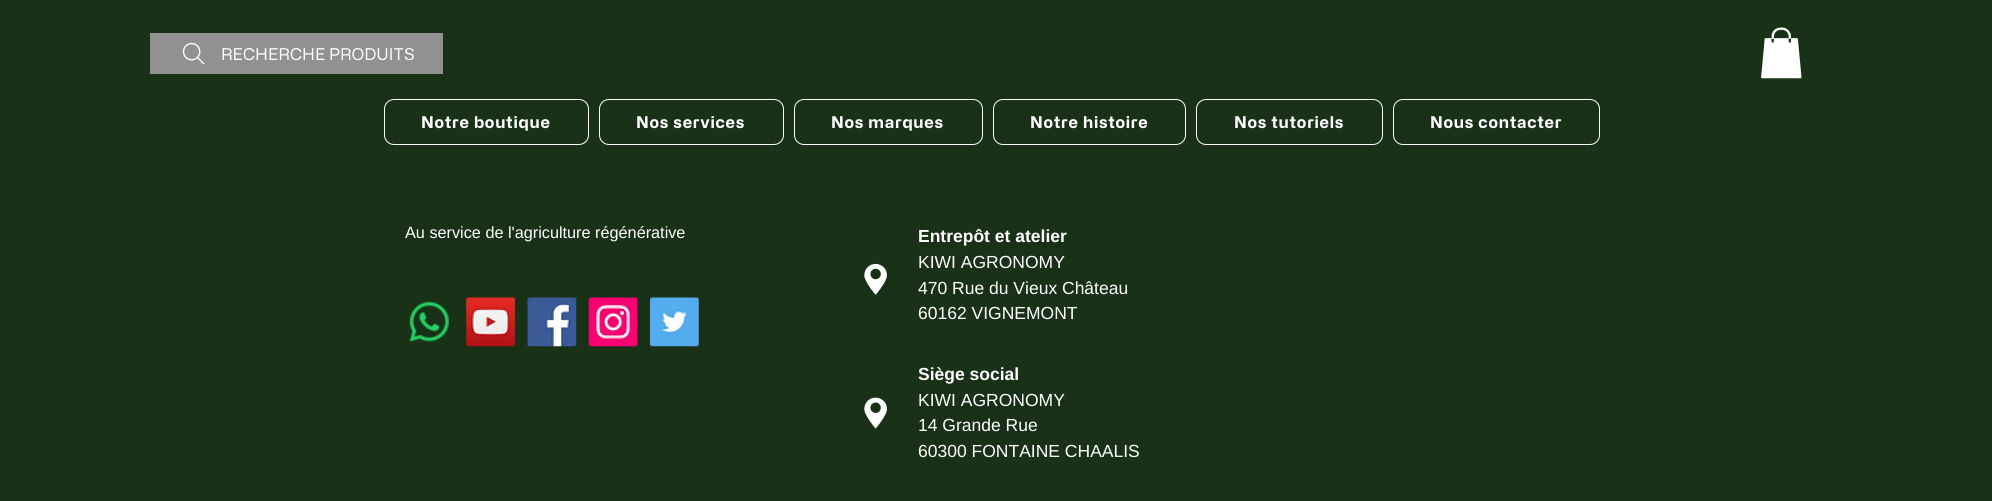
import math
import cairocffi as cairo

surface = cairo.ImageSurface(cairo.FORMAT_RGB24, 1992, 501)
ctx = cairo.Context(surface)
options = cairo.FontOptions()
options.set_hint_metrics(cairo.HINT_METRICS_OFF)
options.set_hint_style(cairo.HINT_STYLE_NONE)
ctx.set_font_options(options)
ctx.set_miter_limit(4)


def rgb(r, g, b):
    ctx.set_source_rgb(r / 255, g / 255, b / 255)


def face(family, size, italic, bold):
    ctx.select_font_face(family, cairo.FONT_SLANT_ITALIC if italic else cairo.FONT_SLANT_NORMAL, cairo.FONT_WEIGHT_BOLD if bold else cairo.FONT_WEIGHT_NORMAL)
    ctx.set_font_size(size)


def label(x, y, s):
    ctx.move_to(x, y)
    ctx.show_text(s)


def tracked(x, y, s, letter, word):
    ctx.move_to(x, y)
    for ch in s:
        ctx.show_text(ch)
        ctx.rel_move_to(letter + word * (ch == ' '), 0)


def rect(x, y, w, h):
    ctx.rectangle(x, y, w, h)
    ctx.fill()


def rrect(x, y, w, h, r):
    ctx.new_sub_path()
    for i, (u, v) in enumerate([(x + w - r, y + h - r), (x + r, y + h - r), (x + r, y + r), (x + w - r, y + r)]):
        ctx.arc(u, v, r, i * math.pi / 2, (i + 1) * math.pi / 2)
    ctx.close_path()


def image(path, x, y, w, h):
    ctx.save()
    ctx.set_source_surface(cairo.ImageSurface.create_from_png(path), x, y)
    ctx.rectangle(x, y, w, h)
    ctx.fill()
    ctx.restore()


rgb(25, 49, 23)
ctx.paint()
rgb(145, 145, 145)
rect(150, 33, 293, 41)
image('image0.png', 182, 42, 23, 23)
face('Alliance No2', 16.25, 0, 0)
rgb(255, 255, 255)
label(221, 60, 'RECHERCHE PRODUITS')
image('image1.png', 1761, 27, 41, 52)
rrect(384.5, 99.5, 204, 45, 9.5)
ctx.set_line_width(1)
ctx.stroke()
face('Alliance No2', 16.25, 0, 1)
tracked(421, 128, 'Notre boutique', 0.75, 0)
rrect(599.5, 99.5, 184, 45, 9.5)
ctx.stroke()
tracked(636, 128, 'Nos services', 0.75, 0)
rrect(794.5, 99.5, 188, 45, 9.5)
ctx.stroke()
tracked(831, 128, 'Nos marques', 0.75, 0)
rrect(993.5, 99.5, 192, 45, 9.5)
ctx.stroke()
tracked(1030, 128, 'Notre histoire', 0.75, 0)
rrect(1196.5, 99.5, 186, 45, 9.5)
ctx.stroke()
tracked(1234, 128, 'Nos tutoriels', 0.75, 0)
rrect(1393.5, 99.5, 206, 45, 9.5)
ctx.stroke()
tracked(1430, 128, 'Nous contacter', 0.75, 0)
face('Liberation Sans', 16.25, 0, 0)
label(405, 238, 'Au service de l\'agriculture régénérative')
image('image2.png', 864, 263, 23, 32)
face('Liberation Sans', 17.5, 0, 1)
label(918, 242, 'Entrepôt et atelier')
face('Liberation Sans', 17.5, 0, 0)
label(918, 268, 'KIWI AGRONOMY')
label(918, 294, '470 Rue du Vieux Château')
label(918, 319, '60162 VIGNEMONT')
image('image3.png', 409, 301, 40, 41)
image('image4.png', 466, 297, 49, 50)
image('image5.png', 527, 297, 50, 50)
image('image6.png', 588, 297, 50, 50)
image('image7.png', 650, 297, 49, 50)
image('image8.png', 864, 397, 23, 32)
face('Liberation Sans', 17.5, 0, 1)
label(918, 380, 'Siège social')
face('Liberation Sans', 17.5, 0, 0)
label(918, 406, 'KIWI AGRONOMY')
label(918, 431, '14 Grande Rue')
label(918, 457, '60300 FONTAINE CHAALIS')
surface.write_to_png('render.png')
